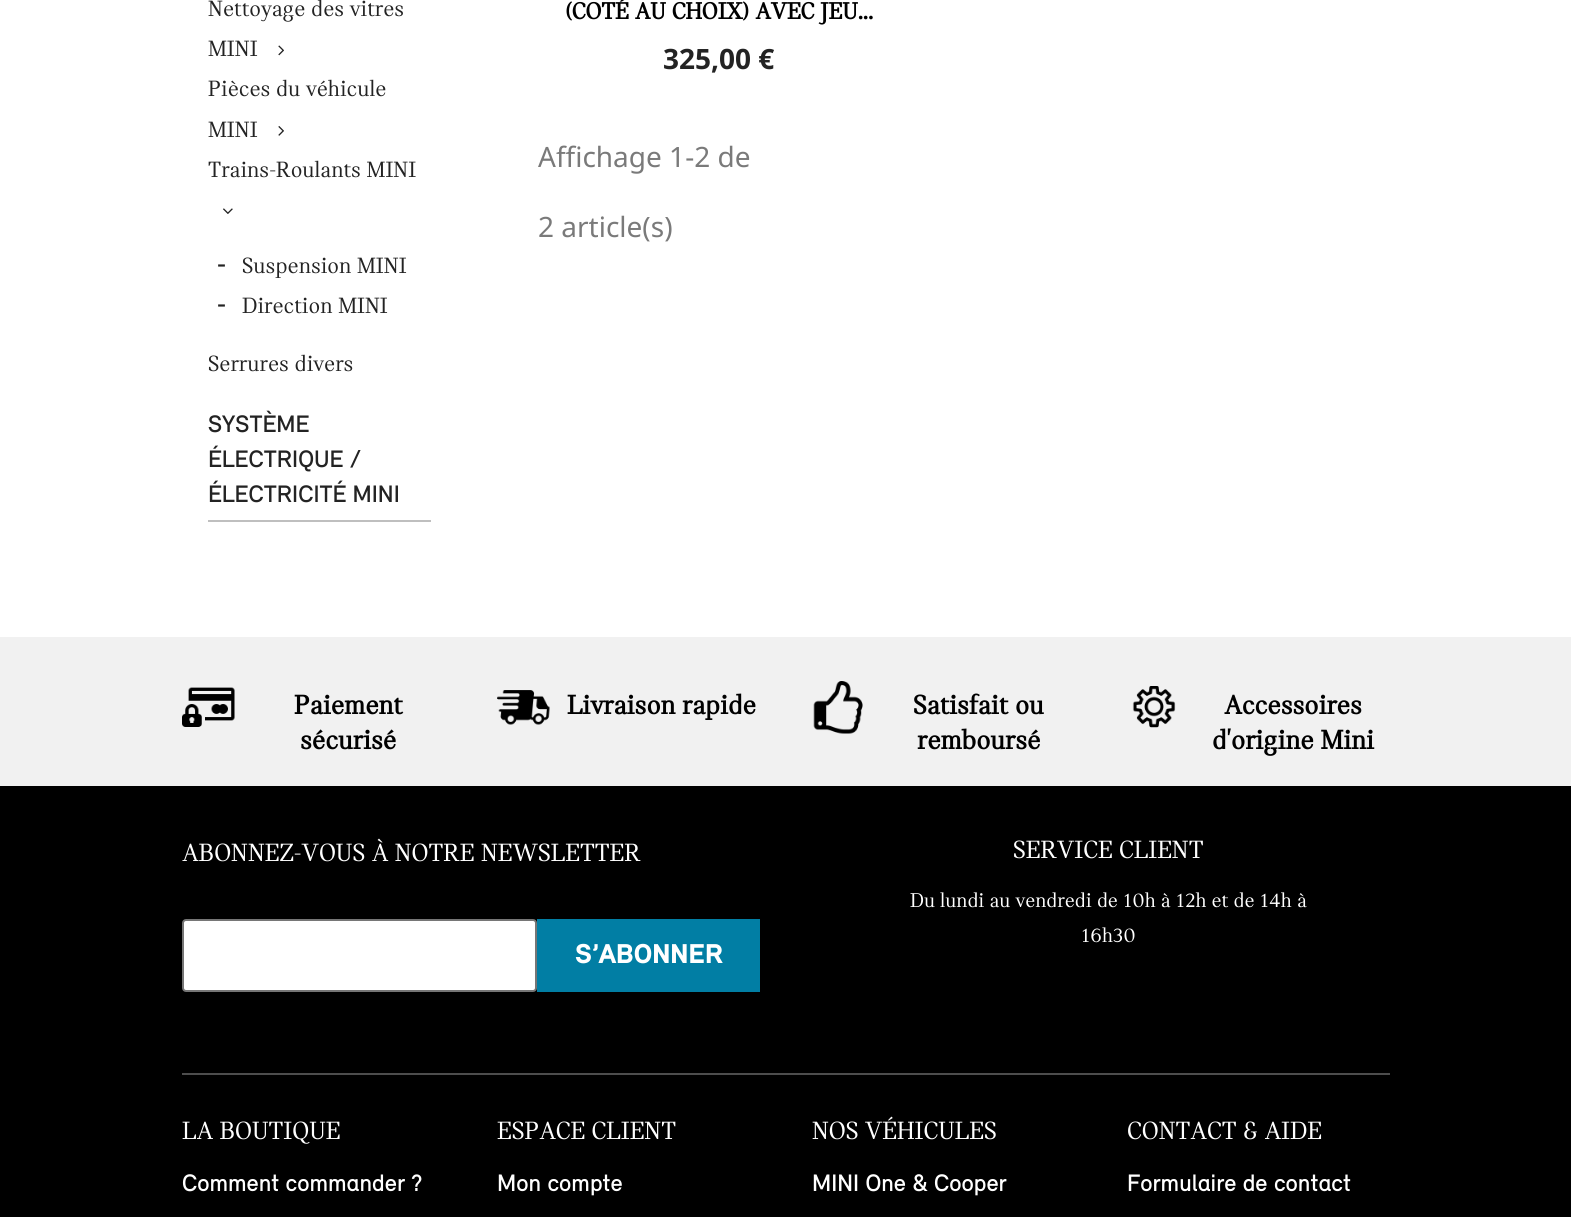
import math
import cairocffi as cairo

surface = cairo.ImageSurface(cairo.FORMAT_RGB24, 1571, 1217)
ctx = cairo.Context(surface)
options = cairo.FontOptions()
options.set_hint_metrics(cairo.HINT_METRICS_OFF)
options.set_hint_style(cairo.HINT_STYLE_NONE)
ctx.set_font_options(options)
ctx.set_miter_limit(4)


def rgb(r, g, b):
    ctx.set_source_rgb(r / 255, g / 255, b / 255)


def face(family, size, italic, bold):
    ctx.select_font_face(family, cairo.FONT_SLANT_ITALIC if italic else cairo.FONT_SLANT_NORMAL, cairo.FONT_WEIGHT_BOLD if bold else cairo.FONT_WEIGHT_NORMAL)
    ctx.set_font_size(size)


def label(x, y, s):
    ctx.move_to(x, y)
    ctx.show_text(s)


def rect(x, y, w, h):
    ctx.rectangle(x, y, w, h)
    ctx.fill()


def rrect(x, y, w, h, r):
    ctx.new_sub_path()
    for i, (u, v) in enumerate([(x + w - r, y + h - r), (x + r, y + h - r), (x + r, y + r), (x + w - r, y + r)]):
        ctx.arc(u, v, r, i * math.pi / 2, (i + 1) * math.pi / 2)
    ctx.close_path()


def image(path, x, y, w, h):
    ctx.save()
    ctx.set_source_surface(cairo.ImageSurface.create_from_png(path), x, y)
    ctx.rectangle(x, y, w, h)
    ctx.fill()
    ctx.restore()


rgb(255, 255, 255)
ctx.paint()
face('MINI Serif', 23.25, 0, 0)
rgb(35, 35, 35)
label(208, 16, 'Nettoyage des vitres')
label(208, 56, 'MINI')
image('image0.png', 278, 45, 6, 11)
label(208, 96, 'Pièces du véhicule')
label(208, 137, 'MINI')
image('image1.png', 278, 126, 6, 10)
label(208, 177, 'Trains-Roulants MINI')
image('image2.png', 223, 208, 10, 6)
face('Noto Sans', 28, 0, 0)
label(217, 273, '-')
face('MINI Serif', 23.25, 0, 0)
label(242, 273, 'Suspension MINI')
face('Noto Sans', 28, 0, 0)
label(217, 313, '-')
face('MINI Serif', 23.25, 0, 0)
label(242, 313, 'Direction MINI')
label(208, 371, 'Serrures divers')
rgb(191, 191, 191)
rect(208, 520, 223, 2)
face('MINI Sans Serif', 24.5, 0, 0)
rgb(35, 35, 35)
label(208, 432, 'SYSTÈME')
label(208, 467, 'ÉLECTRIQUE /')
label(208, 502, 'ÉLECTRICITÉ MINI')
face('MINI Serif', 24.5, 0, 1)
rgb(0, 0, 0)
label(565, 19, '(COTÉ AU CHOIX) AVEC JEU...')
face('Noto Sans', 28, 0, 1)
rgb(35, 35, 35)
label(663, 69, '325,00 €')
face('Noto Sans', 28, 0, 0)
rgb(122, 122, 122)
label(538, 167, 'Affichage 1-2 de')
label(538, 237, '2 article(s)')
rgb(241, 241, 241)
rect(0, 637, 1571, 149)
image('image3.png', 182, 687, 53, 40)
face('MINI Serif', 28, 0, 1)
rgb(0, 0, 0)
label(294, 714, 'Paiement')
label(300, 749, 'sécurisé')
image('image4.png', 497, 690, 53, 35)
label(567, 714, 'Livraison rapide')
image('image5.png', 813, 681, 50, 53)
label(913, 714, 'Satisfait ou')
label(917, 749, 'remboursé')
image('image6.png', 1132, 686, 44, 42)
label(1224, 714, 'Accessoires')
label(1212, 749, 'd\'origine Mini')
rect(0, 786, 1571, 431)
face('MINI Serif', 26.25, 0, 0)
rgb(255, 255, 255)
label(182, 861, 'ABONNEZ-VOUS À NOTRE NEWSLETTER')
rrect(183, 920, 353, 71, 3)
ctx.fill_preserve()
rgb(118, 118, 118)
ctx.stroke()
rgb(1, 126, 164)
rect(537, 919, 223, 73)
face('MINI Sans Serif', 28, 0, 1)
rgb(255, 255, 255)
label(575, 963, 'S’ABONNER')
face('MINI Serif', 26.25, 0, 0)
label(1013, 858, 'SERVICE CLIENT')
face('MINI Serif', 21, 0, 0)
label(910, 907, 'Du lundi au vendredi de 10h à 12h et de 14h à')
label(1081, 942, '16h30')
rgb(77, 77, 77)
rect(182, 1073, 1208, 2)
face('MINI Serif', 26.25, 0, 0)
rgb(255, 255, 255)
label(182, 1139, 'LA BOUTIQUE')
face('MINI Sans Serif', 24.5, 0, 0)
label(182, 1191, 'Comment commander ?')
face('MINI Serif', 26.25, 0, 0)
label(497, 1139, 'ESPACE CLIENT')
face('MINI Sans Serif', 24.5, 0, 0)
label(497, 1191, 'Mon compte')
face('MINI Serif', 26.25, 0, 0)
label(812, 1139, 'NOS VÉHICULES')
face('MINI Sans Serif', 24.5, 0, 0)
label(812, 1191, 'MINI One & Cooper')
face('MINI Serif', 26.25, 0, 0)
label(1127, 1139, 'CONTACT & AIDE')
face('MINI Sans Serif', 24.5, 0, 0)
label(1127, 1191, 'Formulaire de contact')
surface.write_to_png('render.png')
